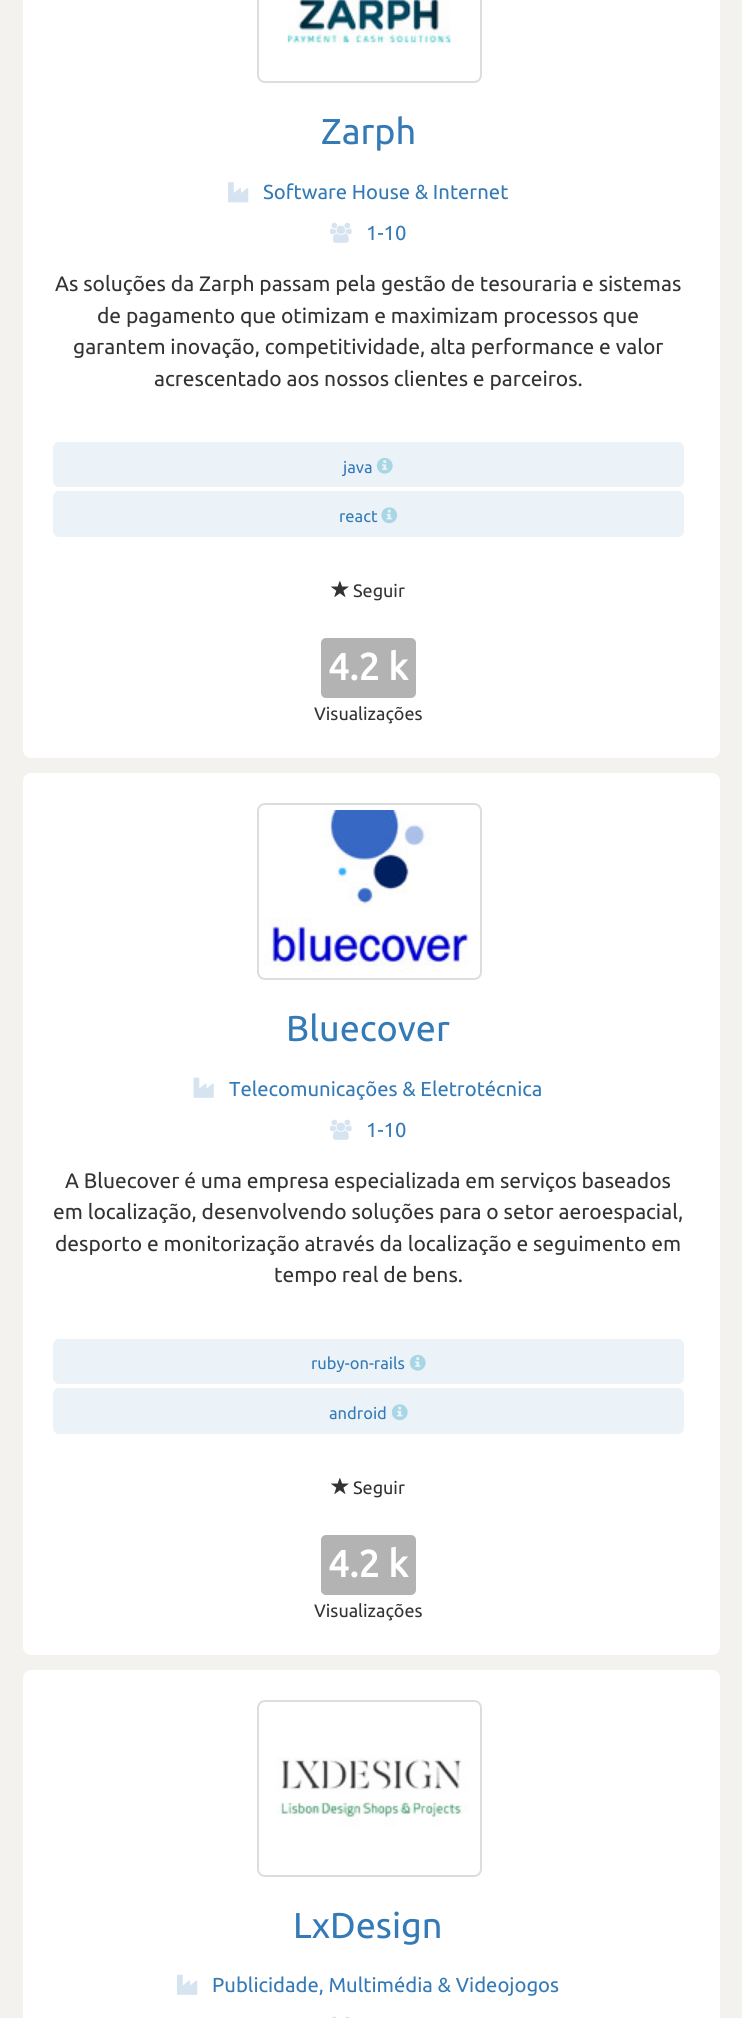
import math
import cairocffi as cairo

surface = cairo.ImageSurface(cairo.FORMAT_RGB24, 742, 2018)
ctx = cairo.Context(surface)
options = cairo.FontOptions()
options.set_hint_metrics(cairo.HINT_METRICS_OFF)
options.set_hint_style(cairo.HINT_STYLE_NONE)
ctx.set_font_options(options)
ctx.set_miter_limit(4)


def rgb(r, g, b):
    ctx.set_source_rgb(r / 255, g / 255, b / 255)


def face(family, size, italic, bold):
    ctx.select_font_face(family, cairo.FONT_SLANT_ITALIC if italic else cairo.FONT_SLANT_NORMAL, cairo.FONT_WEIGHT_BOLD if bold else cairo.FONT_WEIGHT_NORMAL)
    ctx.set_font_size(size)


def label(x, y, s):
    ctx.move_to(x, y)
    ctx.show_text(s)


def rrect(x, y, w, h, r):
    ctx.new_sub_path()
    for i, (u, v) in enumerate([(x + w - r, y + h - r), (x + r, y + h - r), (x + r, y + r), (x + w - r, y + r)]):
        ctx.arc(u, v, r, i * math.pi / 2, (i + 1) * math.pi / 2)
    ctx.close_path()


def image(path, x, y, w, h):
    ctx.save()
    ctx.set_source_surface(cairo.ImageSurface.create_from_png(path), x, y)
    ctx.rectangle(x, y, w, h)
    ctx.fill()
    ctx.restore()


rgb(243, 242, 239)
ctx.paint()
rgb(255, 255, 255)
rrect(23, -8, 697, 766, 8)
ctx.fill()
rrect(258, -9, 223, 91, 7)
rgb(221, 221, 221)
ctx.stroke()
image('image0.png', 287, 0, 164, 45)
face('Ubuntu', 36, 0, 0)
rgb(51, 122, 183)
label(321, 144, 'Zarph')
image('image1.png', 228, 182, 21, 21)
face('Ubuntu', 20.25, 0, 0)
label(263, 199, 'Software House & Internet')
image('image2.png', 330, 222, 22, 21)
label(366, 240, '1-10')
face('Ubuntu', 21, 0, 0)
rgb(51, 51, 51)
label(55, 291, 'As soluções da Zarph passam pela gestão de tesouraria e sistemas')
label(97, 323, 'de pagamento que otimizam e maximizam processos que')
label(73, 354, 'garantem inovação, competitividade, alta performance e valor')
label(154, 386, 'acrescentado aos nossos clientes e parceiros.')
rgb(236, 243, 248)
rrect(52, 441, 633, 47, 7)
ctx.fill_preserve()
rgb(255, 255, 255)
ctx.stroke()
face('Ubuntu', 16.5, 0, 0)
rgb(51, 122, 183)
label(343, 473, 'java')
image('image3.png', 376, 457, 17, 17)
rgb(236, 243, 248)
rrect(52, 490, 633, 48, 7)
ctx.fill_preserve()
rgb(255, 255, 255)
ctx.stroke()
rgb(51, 122, 183)
label(339, 522, 'react')
image('image4.png', 381, 507, 17, 17)
image('image5.png', 331, 581, 18, 16)
face('Ubuntu', 18, 0, 0)
rgb(51, 51, 51)
label(353, 597, 'Seguir')
rgb(179, 179, 179)
rrect(321, 638, 95, 60, 5)
ctx.fill()
face('Ubuntu', 37.5, 0, 1)
rgb(255, 255, 255)
label(328, 680, '4.2 k')
face('Ubuntu', 18, 0, 0)
rgb(51, 51, 51)
label(314, 720, 'Visualizações')
rgb(255, 255, 255)
rrect(23, 773, 697, 882, 8)
ctx.fill()
rrect(258, 804, 223, 175, 7)
rgb(221, 221, 221)
ctx.stroke()
image('image6.png', 264, 810, 205, 162)
face('Ubuntu', 36, 0, 0)
rgb(51, 122, 183)
label(286, 1041, 'Bluecover')
image('image7.png', 193, 1077, 21, 21)
face('Ubuntu', 20.25, 0, 0)
label(229, 1096, 'Telecomunicações & Eletrotécnica')
image('image2.png', 330, 1119, 22, 21)
label(366, 1137, '1-10')
face('Ubuntu', 21, 0, 0)
rgb(51, 51, 51)
label(65, 1188, 'A Bluecover é uma empresa especializada em serviços baseados')
label(53, 1219, 'em localização, desenvolvendo soluções para o setor aeroespacial,')
label(55, 1251, 'desporto e monitorização através da localização e seguimento em')
label(274, 1282, 'tempo real de bens.')
rgb(236, 243, 248)
rrect(52, 1338, 633, 47, 7)
ctx.fill_preserve()
rgb(255, 255, 255)
ctx.stroke()
face('Ubuntu', 16.5, 0, 0)
rgb(51, 122, 183)
label(311, 1369, 'ruby-on-rails')
image('image3.png', 409, 1354, 17, 17)
rgb(236, 243, 248)
rrect(52, 1387, 633, 48, 7)
ctx.fill_preserve()
rgb(255, 255, 255)
ctx.stroke()
rgb(51, 122, 183)
label(329, 1419, 'android')
image('image8.png', 391, 1404, 17, 17)
image('image5.png', 331, 1478, 18, 16)
face('Ubuntu', 18, 0, 0)
rgb(51, 51, 51)
label(353, 1494, 'Seguir')
rgb(179, 179, 179)
rrect(321, 1535, 95, 60, 5)
ctx.fill()
face('Ubuntu', 37.5, 0, 1)
rgb(255, 255, 255)
label(328, 1577, '4.2 k')
face('Ubuntu', 18, 0, 0)
rgb(51, 51, 51)
label(314, 1617, 'Visualizações')
rgb(255, 255, 255)
rrect(23, 1670, 697, 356, 8)
ctx.fill()
rrect(258, 1701, 223, 175, 7)
rgb(221, 221, 221)
ctx.stroke()
image('image9.png', 276, 1757, 192, 70)
face('Ubuntu', 36, 0, 0)
rgb(51, 122, 183)
label(293, 1938, 'LxDesign')
image('image10.png', 177, 1974, 21, 21)
face('Ubuntu', 20.25, 0, 0)
label(212, 1992, 'Publicidade, Multimédia & Videojogos')
image('image11.png', 332, 2016, 18, 2)
surface.write_to_png('render.png')
